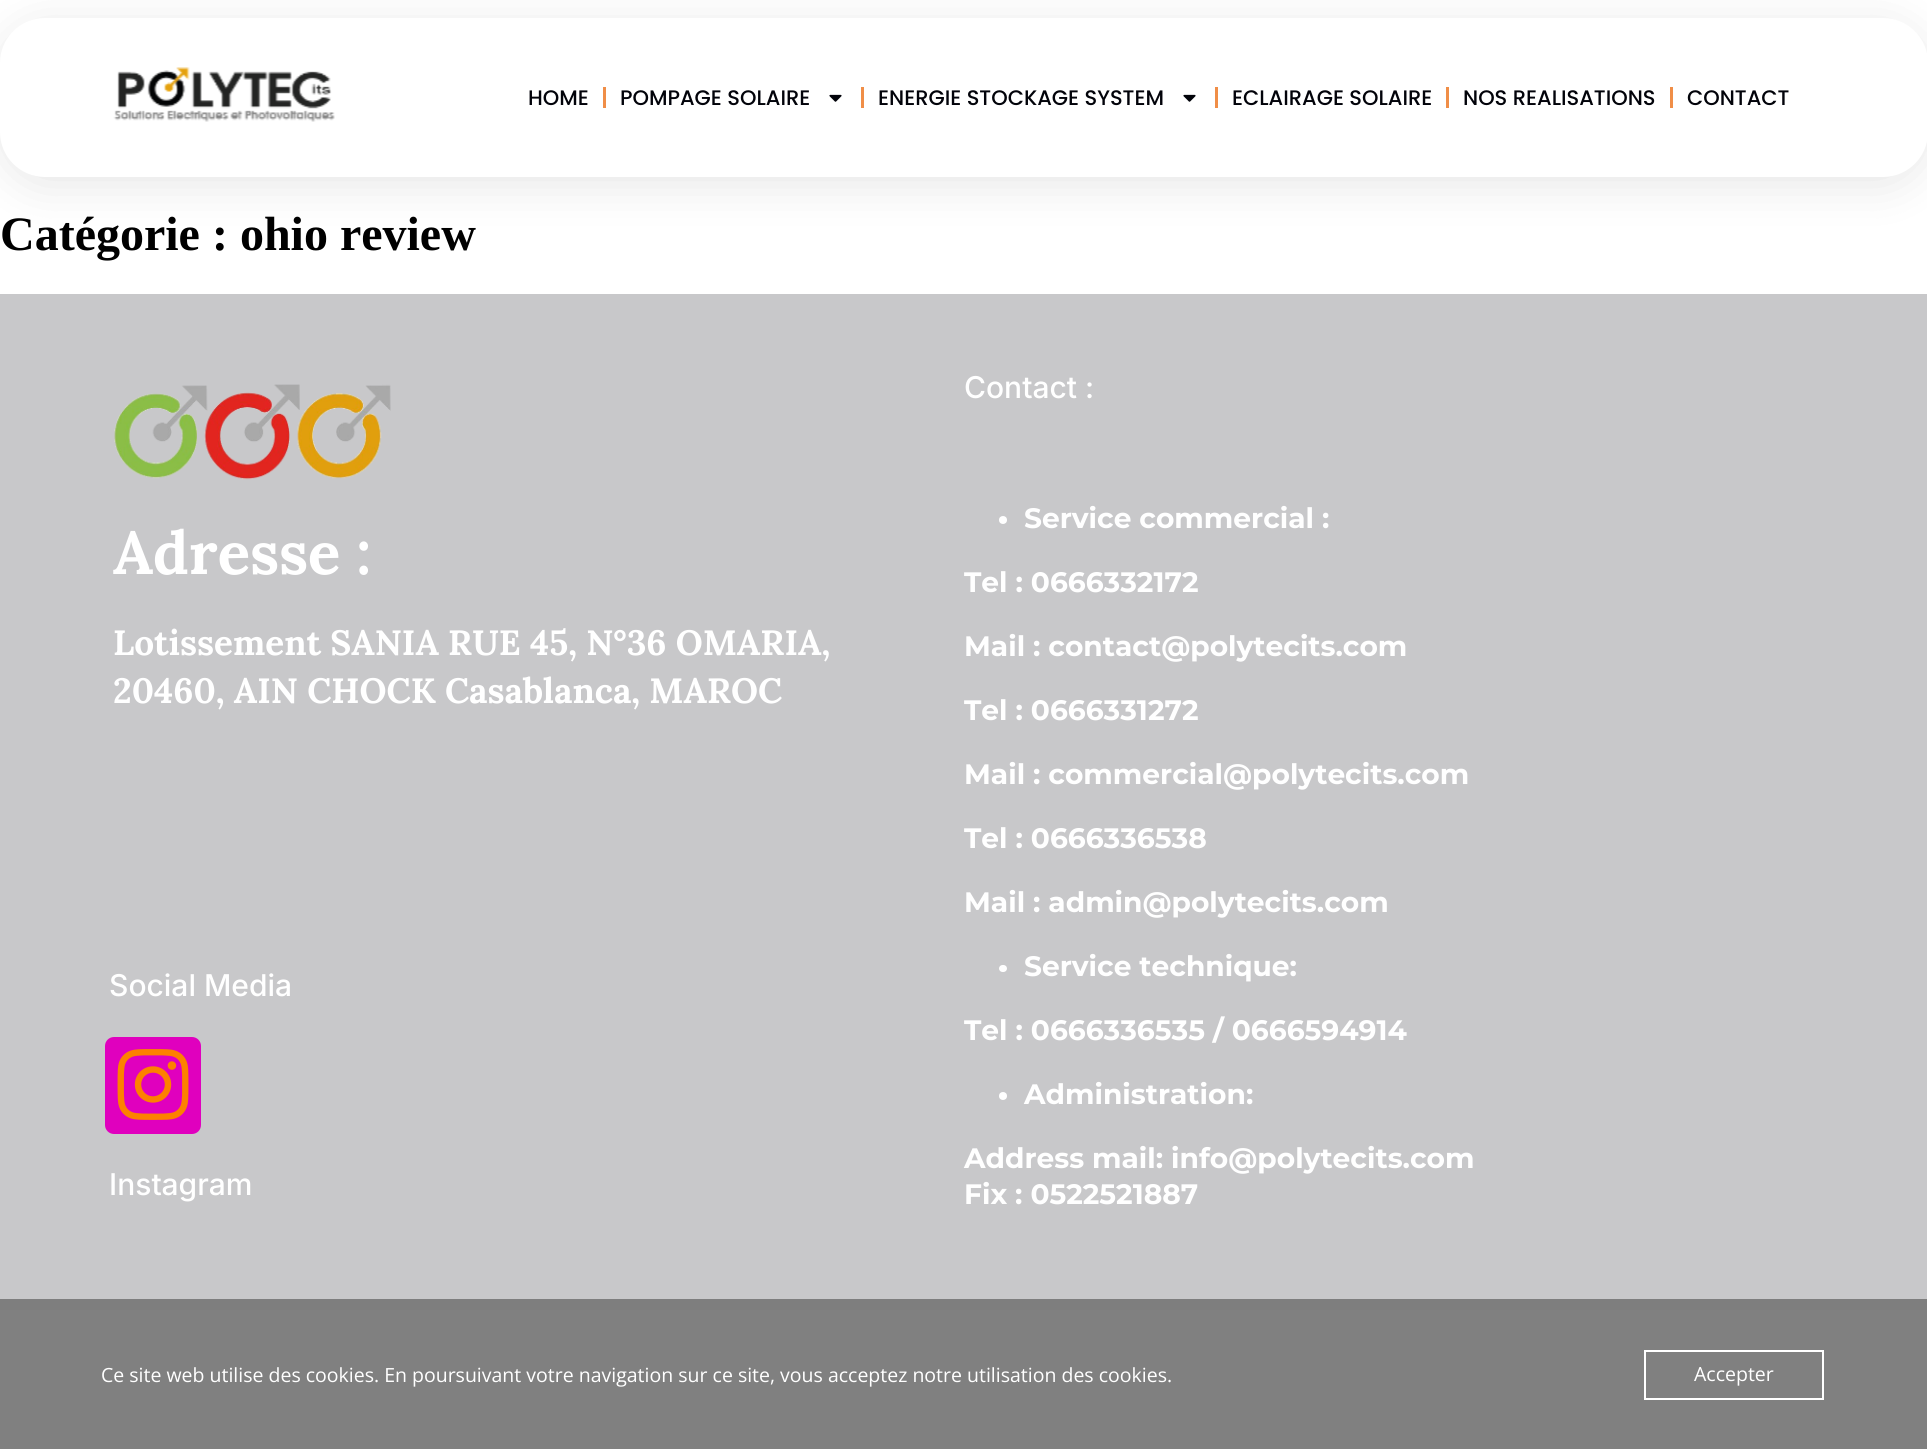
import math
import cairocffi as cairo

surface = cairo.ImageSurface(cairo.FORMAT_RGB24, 1927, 1449)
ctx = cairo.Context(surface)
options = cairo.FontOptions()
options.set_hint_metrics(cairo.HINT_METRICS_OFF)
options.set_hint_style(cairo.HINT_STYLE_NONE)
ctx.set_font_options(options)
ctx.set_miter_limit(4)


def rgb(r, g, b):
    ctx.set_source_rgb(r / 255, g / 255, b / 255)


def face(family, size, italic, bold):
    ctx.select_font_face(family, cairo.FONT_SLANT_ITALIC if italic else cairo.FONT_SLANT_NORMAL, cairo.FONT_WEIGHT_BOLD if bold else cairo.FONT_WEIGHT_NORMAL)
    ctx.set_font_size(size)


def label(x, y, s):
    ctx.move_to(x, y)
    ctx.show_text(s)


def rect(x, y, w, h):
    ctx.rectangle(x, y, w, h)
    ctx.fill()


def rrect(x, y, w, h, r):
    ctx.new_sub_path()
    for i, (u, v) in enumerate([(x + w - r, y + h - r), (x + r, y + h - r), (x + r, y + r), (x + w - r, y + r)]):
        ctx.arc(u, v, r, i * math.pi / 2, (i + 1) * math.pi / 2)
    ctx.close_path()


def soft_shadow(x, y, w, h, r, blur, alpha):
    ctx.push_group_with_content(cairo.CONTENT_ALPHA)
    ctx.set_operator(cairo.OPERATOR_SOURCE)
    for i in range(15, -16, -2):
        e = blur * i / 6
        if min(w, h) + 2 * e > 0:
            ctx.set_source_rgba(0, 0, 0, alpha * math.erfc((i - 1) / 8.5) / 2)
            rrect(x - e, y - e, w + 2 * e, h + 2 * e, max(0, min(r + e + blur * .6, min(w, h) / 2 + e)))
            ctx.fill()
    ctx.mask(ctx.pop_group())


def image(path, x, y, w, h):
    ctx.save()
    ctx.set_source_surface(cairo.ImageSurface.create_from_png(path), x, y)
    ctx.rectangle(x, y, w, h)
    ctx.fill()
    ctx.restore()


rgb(255, 255, 255)
ctx.paint()
rgb(128, 128, 128)
rect(0, 1310, 1927, 139)
rgb(0, 0, 0)
soft_shadow(0, 26, 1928, 159, 45, 22.5, 0.1)
rgb(255, 255, 255)
rrect(0, 18, 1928, 159, 45)
ctx.fill()
image('image0.png', 113, 67, 222, 55)
face('Poppins Medium', 21, 0, 0)
rgb(2, 3, 10)
label(528, 105, 'HOME')
rgb(240, 142, 71)
rect(603, 87, 3, 21)
rgb(2, 3, 10)
label(620, 105, 'POMPAGE SOLAIRE')
image('image1.png', 829, 94, 13, 8)
rgb(240, 142, 71)
rect(861, 87, 3, 21)
rgb(2, 3, 10)
label(878, 105, 'ENERGIE STOCKAGE SYSTEM')
image('image1.png', 1183, 94, 13, 8)
rgb(240, 142, 71)
rect(1215, 87, 3, 21)
rgb(2, 3, 10)
label(1232, 105, 'ECLAIRAGE SOLAIRE')
rgb(240, 142, 71)
rect(1446, 87, 3, 21)
rgb(2, 3, 10)
label(1463, 105, 'NOS REALISATIONS')
rgb(240, 142, 71)
rect(1670, 87, 3, 21)
rgb(2, 3, 10)
label(1687, 105, 'CONTACT')
face('Liberation Serif', 48, 0, 1)
rgb(0, 0, 0)
label(0, 250, 'Catégorie : ohio review')
rgb(200, 200, 202)
rect(0, 294, 1927, 1005)
rgb(126, 126, 126)
rect(0, 1299, 1927, 11)
image('image2.png', 114, 384, 277, 96)
face('Lora', 60, 0, 1)
rgb(255, 255, 255)
label(113, 574, 'Adresse :')
face('Lora', 35.1, 0, 1)
label(113, 655, 'Lotissement SANIA RUE 45, N°36 OMARIA,')
label(113, 703, '20460, AIN CHOCK Casablanca, MAROC')
face('Inter Medium', 30, 0, 0)
label(109, 996, 'Social Media')
rgb(224, 0, 190)
rrect(105, 1037, 96, 97, 9)
ctx.fill()
image('image3.png', 117, 1049, 72, 71)
rgb(255, 255, 255)
label(109, 1195, 'Instagram')
label(964, 398, 'Contact :')
ctx.new_path()
ctx.arc(1003, 520, 4, 0, 2 * math.pi)
ctx.fill()
face('Montserrat', 28.1, 0, 1)
label(1024, 528, 'Service commercial :')
label(964, 592, 'Tel : 0666332172')
label(964, 656, 'Mail : contact@polytecits.com')
label(964, 720, 'Tel : 0666331272')
label(964, 784, 'Mail : commercial@polytecits.com')
label(964, 848, 'Tel : 0666336538')
label(964, 912, 'Mail : admin@polytecits.com')
rrect(999, 965, 8, 7, 3.5)
ctx.fill()
label(1024, 976, 'Service technique:')
label(964, 1040, 'Tel : 0666336535 / 0666594914')
ctx.new_path()
ctx.arc(1003, 1096, 4, 0, 2 * math.pi)
ctx.fill()
label(1024, 1104, 'Administration:')
label(964, 1168, 'Address mail: info@polytecits.com')
label(964, 1204, 'Fix : 0522521887')
face('Open Sans', 19.5, 0, 0)
label(101, 1382, 'Ce site web utilise des cookies. En poursuivant votre navigation sur ce site, vous acceptez notre utilisation des cookies.')
ctx.rectangle(1645, 1351, 178, 48)
ctx.stroke()
label(1694, 1381, 'Accepter')
surface.write_to_png('render.png')
